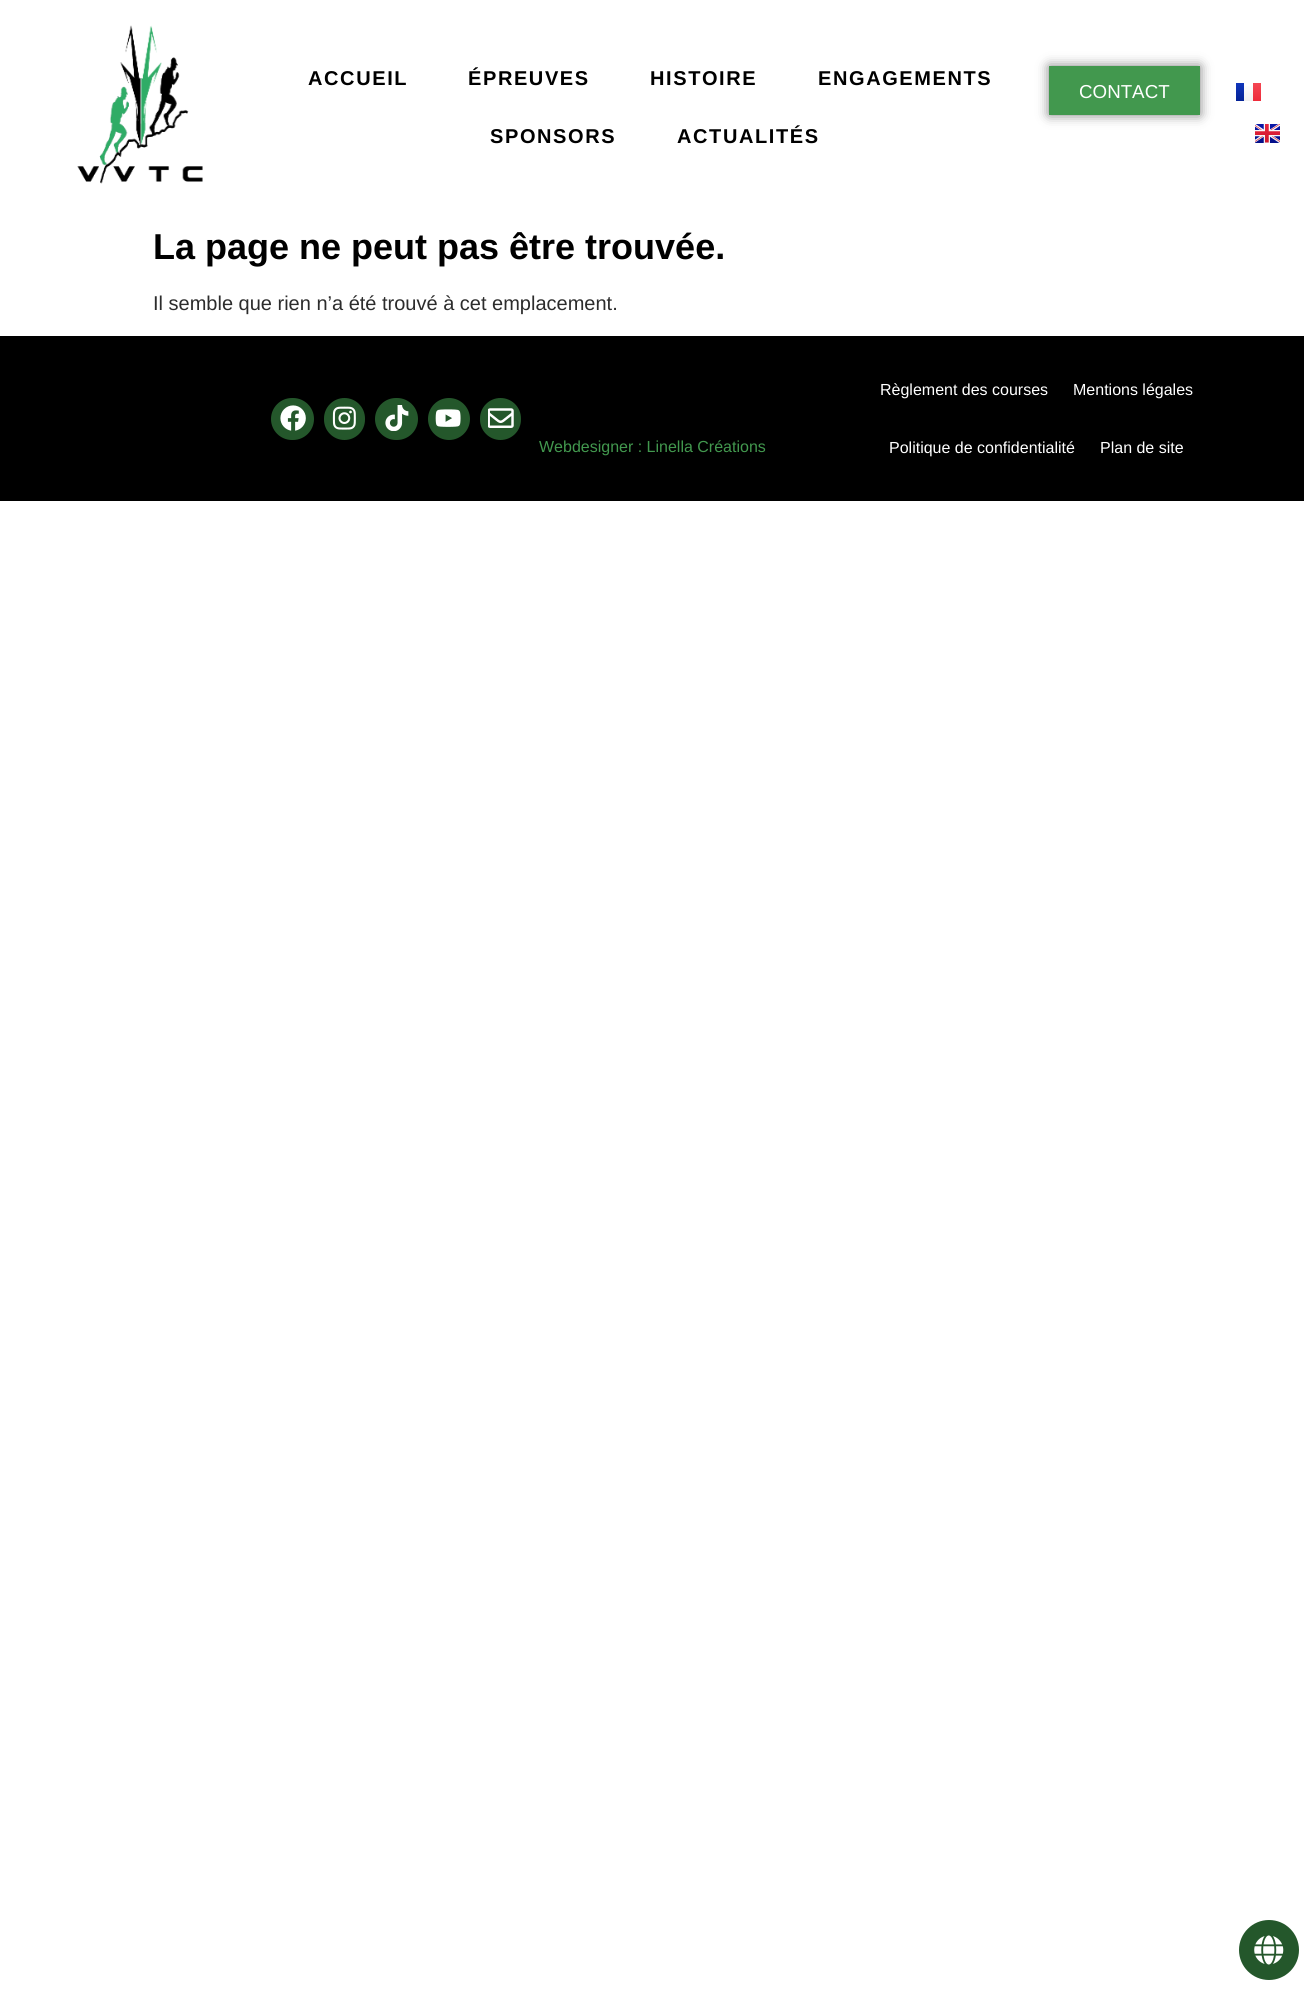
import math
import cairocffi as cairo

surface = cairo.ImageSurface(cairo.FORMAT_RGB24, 1304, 2013)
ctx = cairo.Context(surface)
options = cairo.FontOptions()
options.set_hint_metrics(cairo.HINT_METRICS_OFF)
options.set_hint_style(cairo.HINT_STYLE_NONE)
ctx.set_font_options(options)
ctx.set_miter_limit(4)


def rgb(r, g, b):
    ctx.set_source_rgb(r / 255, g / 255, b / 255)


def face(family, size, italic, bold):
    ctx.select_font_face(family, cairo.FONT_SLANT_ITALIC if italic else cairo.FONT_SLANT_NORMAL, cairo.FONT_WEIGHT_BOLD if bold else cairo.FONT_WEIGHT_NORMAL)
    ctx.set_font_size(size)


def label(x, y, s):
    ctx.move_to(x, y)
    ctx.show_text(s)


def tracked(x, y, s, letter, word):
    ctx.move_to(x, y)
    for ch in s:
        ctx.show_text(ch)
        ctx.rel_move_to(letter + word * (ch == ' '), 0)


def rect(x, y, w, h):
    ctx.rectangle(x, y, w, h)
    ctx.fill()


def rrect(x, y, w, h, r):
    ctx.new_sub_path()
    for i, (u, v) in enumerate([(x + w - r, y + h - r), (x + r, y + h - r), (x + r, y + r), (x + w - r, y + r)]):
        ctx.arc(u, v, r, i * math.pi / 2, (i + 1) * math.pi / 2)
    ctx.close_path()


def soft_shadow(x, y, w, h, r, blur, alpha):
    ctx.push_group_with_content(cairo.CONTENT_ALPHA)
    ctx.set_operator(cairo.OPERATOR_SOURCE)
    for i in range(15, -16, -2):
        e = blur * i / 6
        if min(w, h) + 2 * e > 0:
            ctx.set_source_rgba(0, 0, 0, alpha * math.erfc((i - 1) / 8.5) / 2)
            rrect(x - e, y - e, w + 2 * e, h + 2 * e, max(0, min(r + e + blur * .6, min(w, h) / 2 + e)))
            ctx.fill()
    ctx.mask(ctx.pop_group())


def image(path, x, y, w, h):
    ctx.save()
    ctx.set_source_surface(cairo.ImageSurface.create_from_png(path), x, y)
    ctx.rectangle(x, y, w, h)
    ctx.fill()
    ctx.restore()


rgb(255, 255, 255)
ctx.paint()
image('image0.png', 77, 25, 126, 159)
face('Liberation Sans', 20, 0, 1)
rgb(0, 0, 0)
tracked(308, 85, 'ACCUEIL', 1.6, 0)
tracked(468, 85, 'ÉPREUVES', 1.6, 0)
tracked(650, 85, 'HISTOIRE', 1.6, 0)
tracked(818, 85, 'ENGAGEMENTS', 1.6, 0)
tracked(490, 143, 'SPONSORS', 1.6, 0)
tracked(677, 143, 'ACTUALITÉS', 1.6, 0)
rgb(0, 0, 0)
soft_shadow(1049, 66, 151, 49, 0, 6, 0.5)
rgb(66, 152, 78)
rect(1049, 66, 151, 49)
face('Liberation Sans', 18.75, 0, 0)
rgb(255, 255, 255)
label(1079, 98, 'CONTACT')
gradient = cairo.LinearGradient(1239, 83, 1239, 101)
gradient.add_color_stop_rgba(0, 0.063, 0.208, 0.733, 1)
gradient.add_color_stop_rgba(1, 0.016, 0.137, 0.588, 1)
ctx.set_source(gradient)
rect(1236, 83, 8, 18)
gradient = cairo.LinearGradient(1248, 83, 1248, 101)
gradient.add_color_stop_rgba(0, 1, 1, 1, 1)
gradient.add_color_stop_rgba(1, 0.941, 0.941, 0.941, 1)
ctx.set_source(gradient)
rect(1244, 86, 9, 15)
gradient = cairo.LinearGradient(1254, 83, 1254, 101)
gradient.add_color_stop_rgba(0, 0.957, 0.275, 0.325, 1)
gradient.add_color_stop_rgba(1, 0.933, 0.165, 0.224, 1)
ctx.set_source(gradient)
rect(1253, 83, 8, 18)
image('image1.png', 1255, 124, 25, 19)
face('Liberation Sans', 36, 0, 1)
rgb(0, 0, 0)
label(153, 259, 'La page ne peut pas être trouvée.')
face('Liberation Sans', 20, 0, 0)
rgb(44, 44, 44)
label(153, 310, 'Il semble que rien n’a été trouvé à cet emplacement.')
rgb(0, 0, 0)
rect(0, 336, 1304, 165)
rgb(36, 87, 43)
rrect(271, 398, 43, 42, 21)
ctx.fill()
image('image2.png', 280, 405, 26, 26)
rrect(324, 398, 41, 42, 20.5)
ctx.fill()
image('image3.png', 332, 406, 24, 24)
rrect(375, 398, 43, 42, 21)
ctx.fill()
image('image4.png', 385, 405, 24, 26)
ctx.arc(449, 419, 21, 0, 2 * math.pi)
ctx.fill()
image('image5.png', 435, 409, 26, 18)
rrect(480, 398, 41, 42, 20.5)
ctx.fill()
image('image6.png', 488, 408, 26, 20)
face('Liberation Sans', 16, 0, 0)
rgb(255, 255, 255)
label(880, 395, 'Règlement des courses')
label(1073, 395, 'Mentions légales')
label(889, 453, 'Politique de confidentialité')
label(1100, 453, 'Plan de site')
rgb(66, 152, 78)
label(539, 452, 'Webdesigner : Linella Créations')
rgb(36, 87, 43)
ctx.new_path()
ctx.arc(1269, 1950, 30, 0, 2 * math.pi)
ctx.fill()
image('image7.png', 1254, 1935, 30, 30)
surface.write_to_png('render.png')
